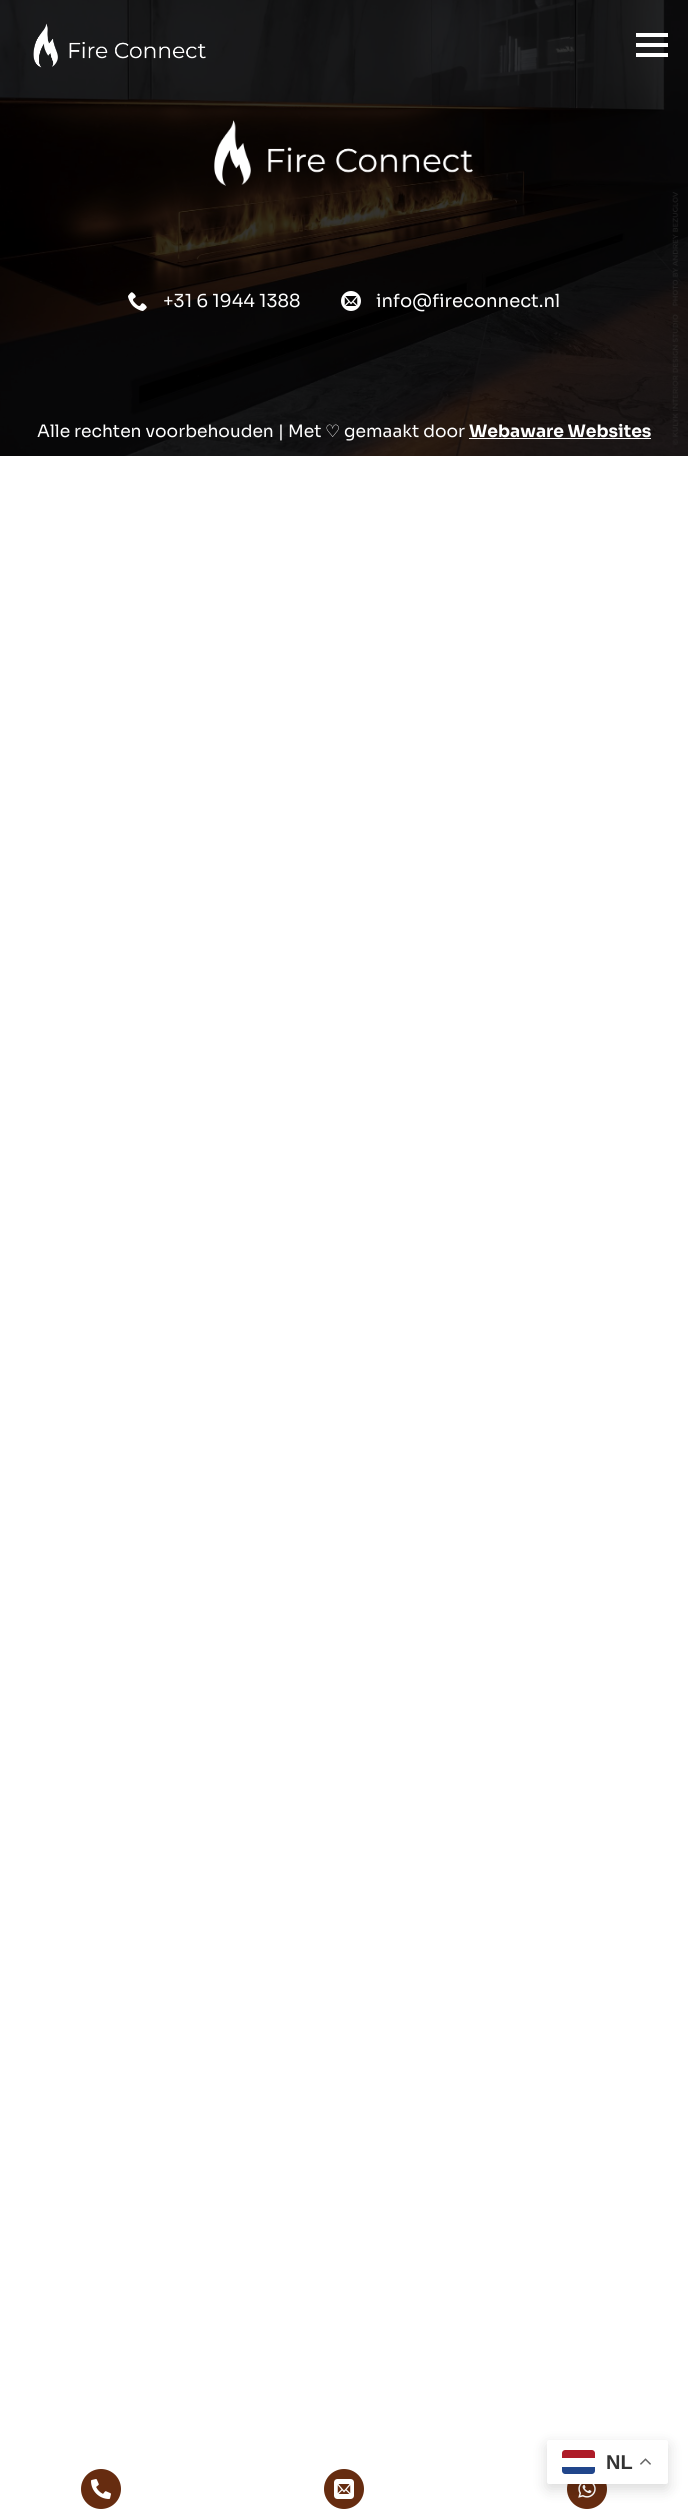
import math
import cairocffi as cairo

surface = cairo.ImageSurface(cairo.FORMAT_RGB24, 688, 2514)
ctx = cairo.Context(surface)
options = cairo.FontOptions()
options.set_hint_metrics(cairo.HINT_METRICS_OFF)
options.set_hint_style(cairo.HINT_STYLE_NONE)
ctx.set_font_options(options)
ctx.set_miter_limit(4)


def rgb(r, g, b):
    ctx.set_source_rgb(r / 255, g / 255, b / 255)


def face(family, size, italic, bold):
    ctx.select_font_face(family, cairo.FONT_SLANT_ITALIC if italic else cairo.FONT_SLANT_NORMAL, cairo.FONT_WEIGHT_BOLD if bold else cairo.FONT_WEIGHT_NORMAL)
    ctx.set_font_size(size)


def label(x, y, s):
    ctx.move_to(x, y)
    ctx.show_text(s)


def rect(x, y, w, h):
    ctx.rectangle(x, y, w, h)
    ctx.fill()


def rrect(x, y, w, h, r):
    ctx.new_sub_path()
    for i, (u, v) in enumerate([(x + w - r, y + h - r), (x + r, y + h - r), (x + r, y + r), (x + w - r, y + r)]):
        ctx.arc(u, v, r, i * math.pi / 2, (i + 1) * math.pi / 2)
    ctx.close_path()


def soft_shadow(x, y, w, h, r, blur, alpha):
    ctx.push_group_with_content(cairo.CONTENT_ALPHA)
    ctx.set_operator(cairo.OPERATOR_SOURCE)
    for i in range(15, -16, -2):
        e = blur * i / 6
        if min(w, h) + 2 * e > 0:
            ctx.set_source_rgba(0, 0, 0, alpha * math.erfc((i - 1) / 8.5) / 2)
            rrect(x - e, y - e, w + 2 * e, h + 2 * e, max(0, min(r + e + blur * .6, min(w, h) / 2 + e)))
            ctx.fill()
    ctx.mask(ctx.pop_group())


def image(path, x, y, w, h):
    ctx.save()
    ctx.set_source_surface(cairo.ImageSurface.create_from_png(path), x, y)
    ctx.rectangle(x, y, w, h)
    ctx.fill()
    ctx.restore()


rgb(255, 255, 255)
ctx.paint()
image('image1.png', 0, 0, 688, 456)
image('image0.png', 33, 23, 173, 45)
rgb(255, 255, 255)
rect(636, 43, 32, 4)
rect(636, 33, 32, 4)
rect(636, 53, 32, 4)
image('image2.png', 214, 120, 259, 66)
image('image3.png', 128, 292, 19, 19)
face('Sora', 18, 0, 0)
label(163, 307, '+31 6 1944 1388')
image('image4.png', 341, 291, 20, 20)
label(376, 307, 'info@fireconnect.nl')
face('Sora', 17.1, 0, 0)
label(37, 437, 'Alle rechten voorbehouden | Met')
face('DejaVu Sans', 17.1, 0, 0)
label(325, 437, '♡')
face('Sora', 17.1, 0, 0)
label(344, 437, 'gemaakt door')
face('Sora', 17.1, 0, 1)
label(469, 437, 'Webaware Websites')
rect(469, 438, 182, 1)
rgb(102, 44, 16)
ctx.new_path()
ctx.arc(587, 2489, 20, 0, 2 * math.pi)
ctx.fill()
image('image8.png', 578, 2484, 18, 14)
rgb(0, 0, 0)
soft_shadow(547, 2445, 121, 44, 2, 7.5, 0.15)
rgb(255, 255, 255)
rrect(547, 2440, 121, 44, 2)
ctx.fill()
rgb(33, 70, 139)
ctx.new_path()
ctx.move_to(562, 2467)
ctx.line_to(595, 2467)
ctx.line_to(595, 2471)
ctx.curve_to(595, 2472.5, 593.5, 2474, 592, 2474)
ctx.line_to(565, 2474)
ctx.curve_to(563.5, 2474, 562, 2472.5, 562, 2471)
ctx.close_path()
ctx.fill()
rgb(174, 28, 40)
ctx.new_path()
ctx.move_to(565, 2450)
ctx.line_to(592, 2450)
ctx.curve_to(593.5, 2450, 595, 2451.5, 595, 2453)
ctx.line_to(595, 2458)
ctx.line_to(562, 2458)
ctx.line_to(562, 2453)
ctx.curve_to(562, 2451.5, 563.5, 2450, 565, 2450)
ctx.close_path()
ctx.fill()
face('Liberation Sans', 20, 0, 1)
rgb(51, 51, 51)
label(606, 2469, 'NL')
image('image5.png', 640, 2458, 11, 7)
rgb(102, 44, 16)
ctx.arc(101, 2489, 20, 0, 2 * math.pi)
ctx.fill()
image('image6.png', 91, 2479, 20, 20)
ctx.arc(344, 2489, 20, 0, 2 * math.pi)
ctx.fill()
image('image7.png', 334, 2479, 20, 20)
surface.write_to_png('render.png')
